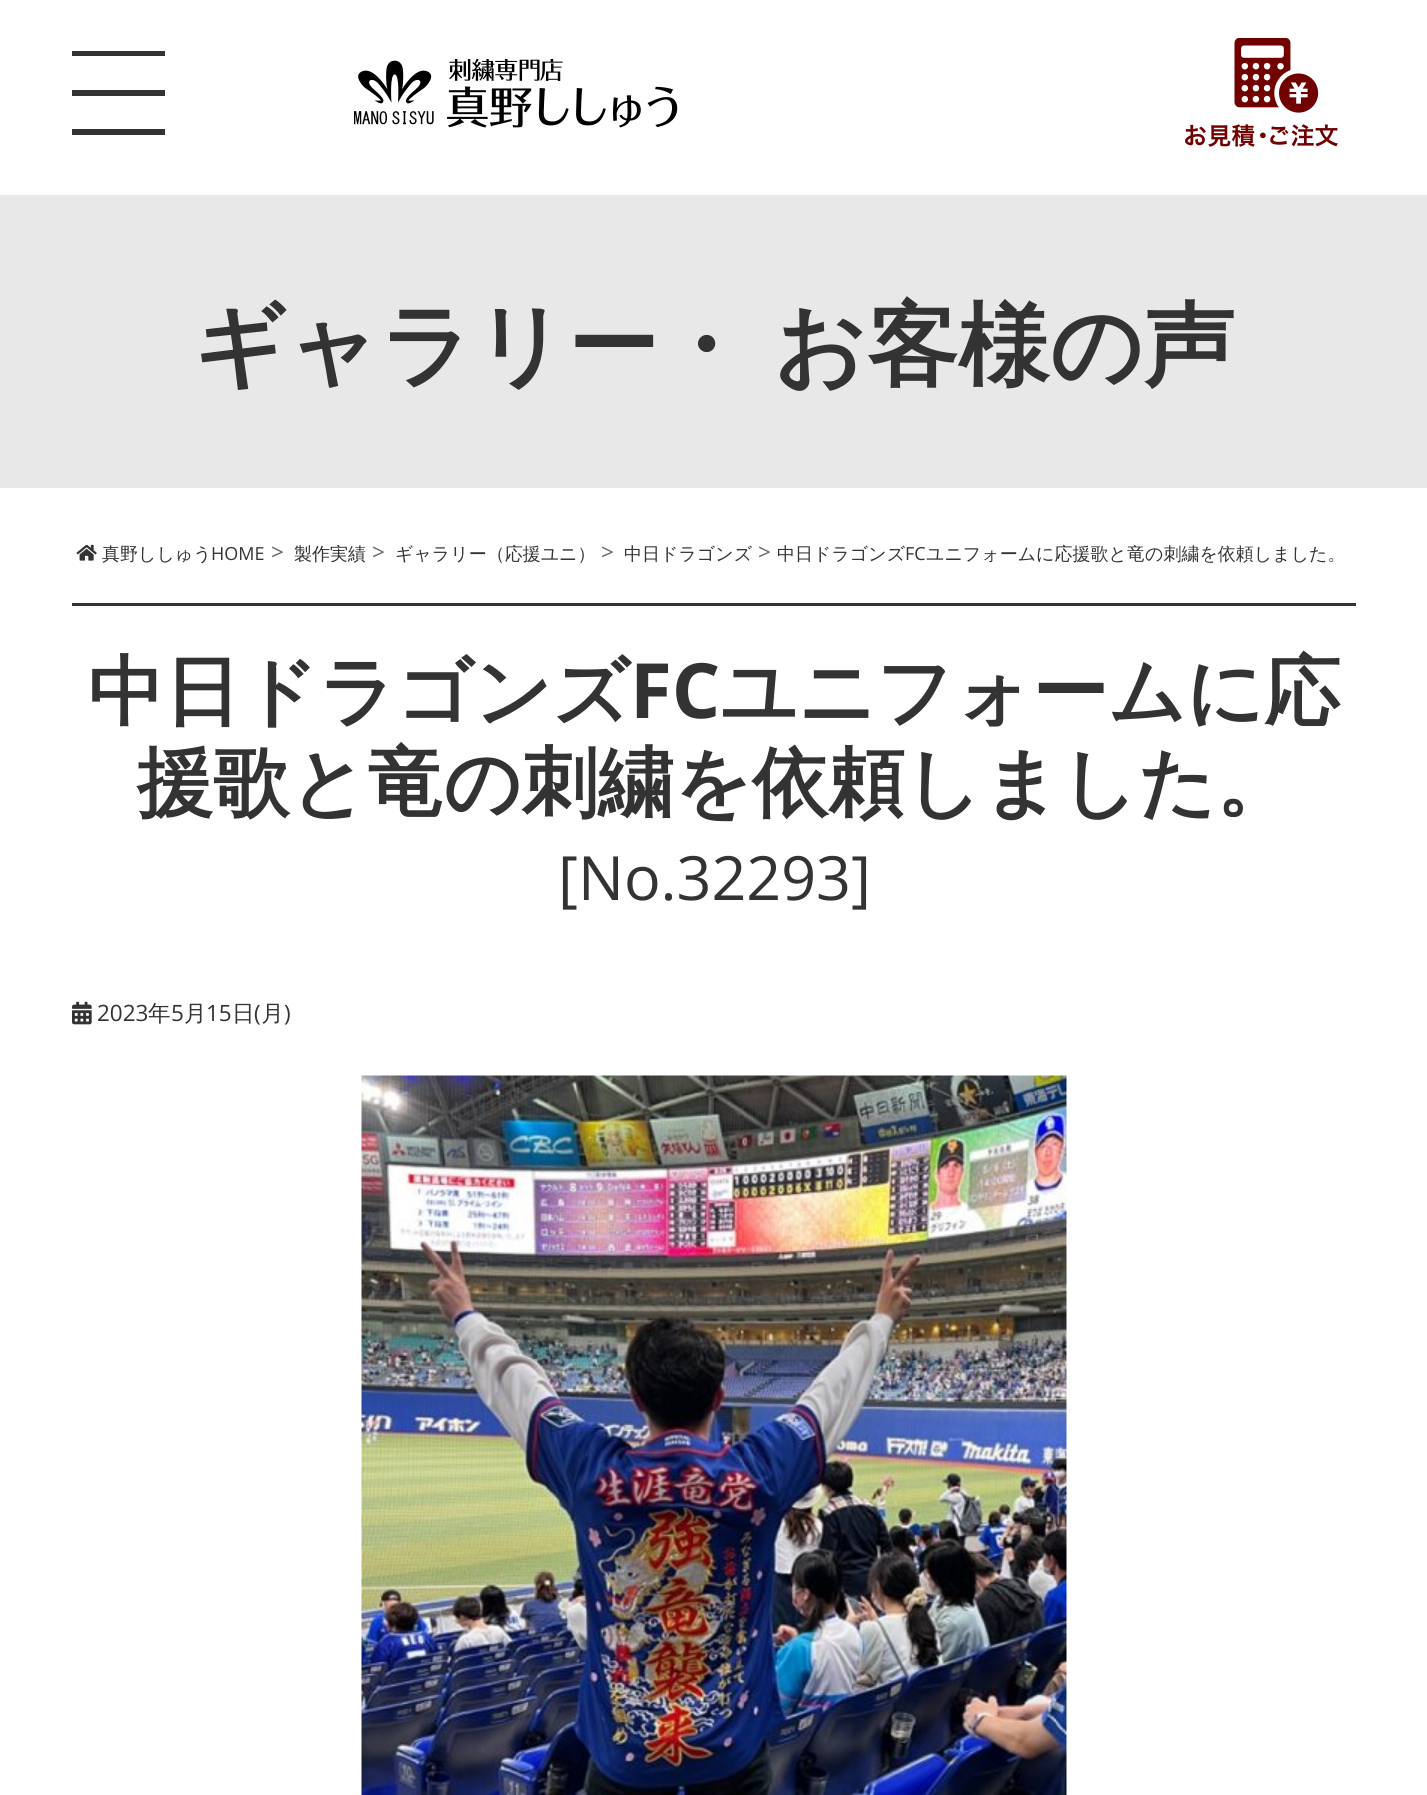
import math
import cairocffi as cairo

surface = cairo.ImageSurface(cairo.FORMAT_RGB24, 1427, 1795)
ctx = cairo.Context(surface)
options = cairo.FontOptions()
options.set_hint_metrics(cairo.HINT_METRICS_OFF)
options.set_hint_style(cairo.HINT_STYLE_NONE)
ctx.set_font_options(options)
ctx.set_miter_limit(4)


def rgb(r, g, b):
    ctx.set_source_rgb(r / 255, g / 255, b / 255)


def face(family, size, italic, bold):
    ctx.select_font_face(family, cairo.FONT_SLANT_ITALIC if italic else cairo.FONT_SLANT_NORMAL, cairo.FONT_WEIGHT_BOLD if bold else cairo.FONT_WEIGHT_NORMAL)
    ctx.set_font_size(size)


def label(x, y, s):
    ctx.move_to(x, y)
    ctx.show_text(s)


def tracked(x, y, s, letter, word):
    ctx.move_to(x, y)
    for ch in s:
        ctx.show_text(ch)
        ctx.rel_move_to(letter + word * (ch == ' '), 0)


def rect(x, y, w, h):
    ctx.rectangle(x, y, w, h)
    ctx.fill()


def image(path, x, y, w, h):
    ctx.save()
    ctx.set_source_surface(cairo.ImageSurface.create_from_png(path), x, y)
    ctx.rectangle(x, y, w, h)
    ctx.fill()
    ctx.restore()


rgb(255, 255, 255)
ctx.paint()
rgb(51, 51, 51)
rect(72, 51, 93, 5)
rect(72, 90, 93, 6)
rect(72, 129, 93, 6)
image('image0.png', 354, 59, 324, 69)
image('image1.png', 1185, 38, 153, 109)
rgb(232, 232, 232)
rect(0, 195, 1427, 293)
face('WenQuanYi Zen Hei', 91.4, 0, 1)
rgb(51, 51, 51)
tracked(193, 377, 'ギャラリー・ お客様の声', 0, -4)
image('image2.png', 76, 544, 21, 17)
face('WenQuanYi Zen Hei Medium', 18, 0, 0)
label(102, 560, '真野ししゅう')
face('Open Sans', 18, 0, 0)
label(211, 560, 'HOME')
face('Open Sans', 22.5, 0, 0)
rgb(102, 102, 102)
label(271, 560, '>')
face('WenQuanYi Zen Hei Medium', 18, 0, 0)
rgb(51, 51, 51)
label(294, 560, '製作実績')
face('Open Sans', 22.5, 0, 0)
rgb(102, 102, 102)
label(372, 560, '>')
face('WenQuanYi Zen Hei Medium', 18, 0, 0)
rgb(51, 51, 51)
label(395, 560, 'ギャラリー（応援ユニ）')
face('Open Sans', 22.5, 0, 0)
rgb(102, 102, 102)
label(601, 560, '>')
face('WenQuanYi Zen Hei Medium', 18, 0, 0)
rgb(51, 51, 51)
label(624, 560, '中日ドラゴンズ')
face('Open Sans', 22.5, 0, 0)
rgb(102, 102, 102)
label(758, 560, '>')
face('WenQuanYi Zen Hei Medium', 18, 0, 0)
rgb(51, 51, 51)
label(777, 560, '中日ドラゴンズ')
face('Open Sans', 18, 0, 0)
label(905, 560, 'FC')
face('WenQuanYi Zen Hei Medium', 18, 0, 0)
label(926, 560, 'ユニフォームに応援歌と竜の刺繍を依頼しました。')
rect(72, 603, 1284, 3)
face('WenQuanYi Zen Hei', 76.2, 0, 1)
label(88, 718, '中日ドラゴンズ')
face('Open Sans', 76.2, 0, 1)
label(630, 718, 'FC')
face('WenQuanYi Zen Hei', 76.2, 0, 1)
label(720, 718, 'ユニフォームに応')
label(137, 809, '援歌と竜の刺繍を依頼しました。')
face('Open Sans', 61, 0, 0)
label(558, 900, '[No.32293]')
image('image3.png', 72, 1001, 20, 24)
face('Open Sans', 22.5, 0, 0)
label(97, 1021, '2023')
face('WenQuanYi Zen Hei Medium', 22.5, 0, 0)
label(148, 1021, '年')
face('Open Sans', 22.5, 0, 0)
label(171, 1021, '5')
face('WenQuanYi Zen Hei Medium', 22.5, 0, 0)
label(184, 1021, '月')
face('Open Sans', 22.5, 0, 0)
label(206, 1021, '15')
face('WenQuanYi Zen Hei Medium', 22.5, 0, 0)
label(232, 1021, '日 月')
face('Open Sans', 22.5, 0, 0)
label(254, 1021, '(')
label(284, 1021, ')')
image('image4.png', 361, 1075, 706, 720)
surface.write_to_png('render.png')
